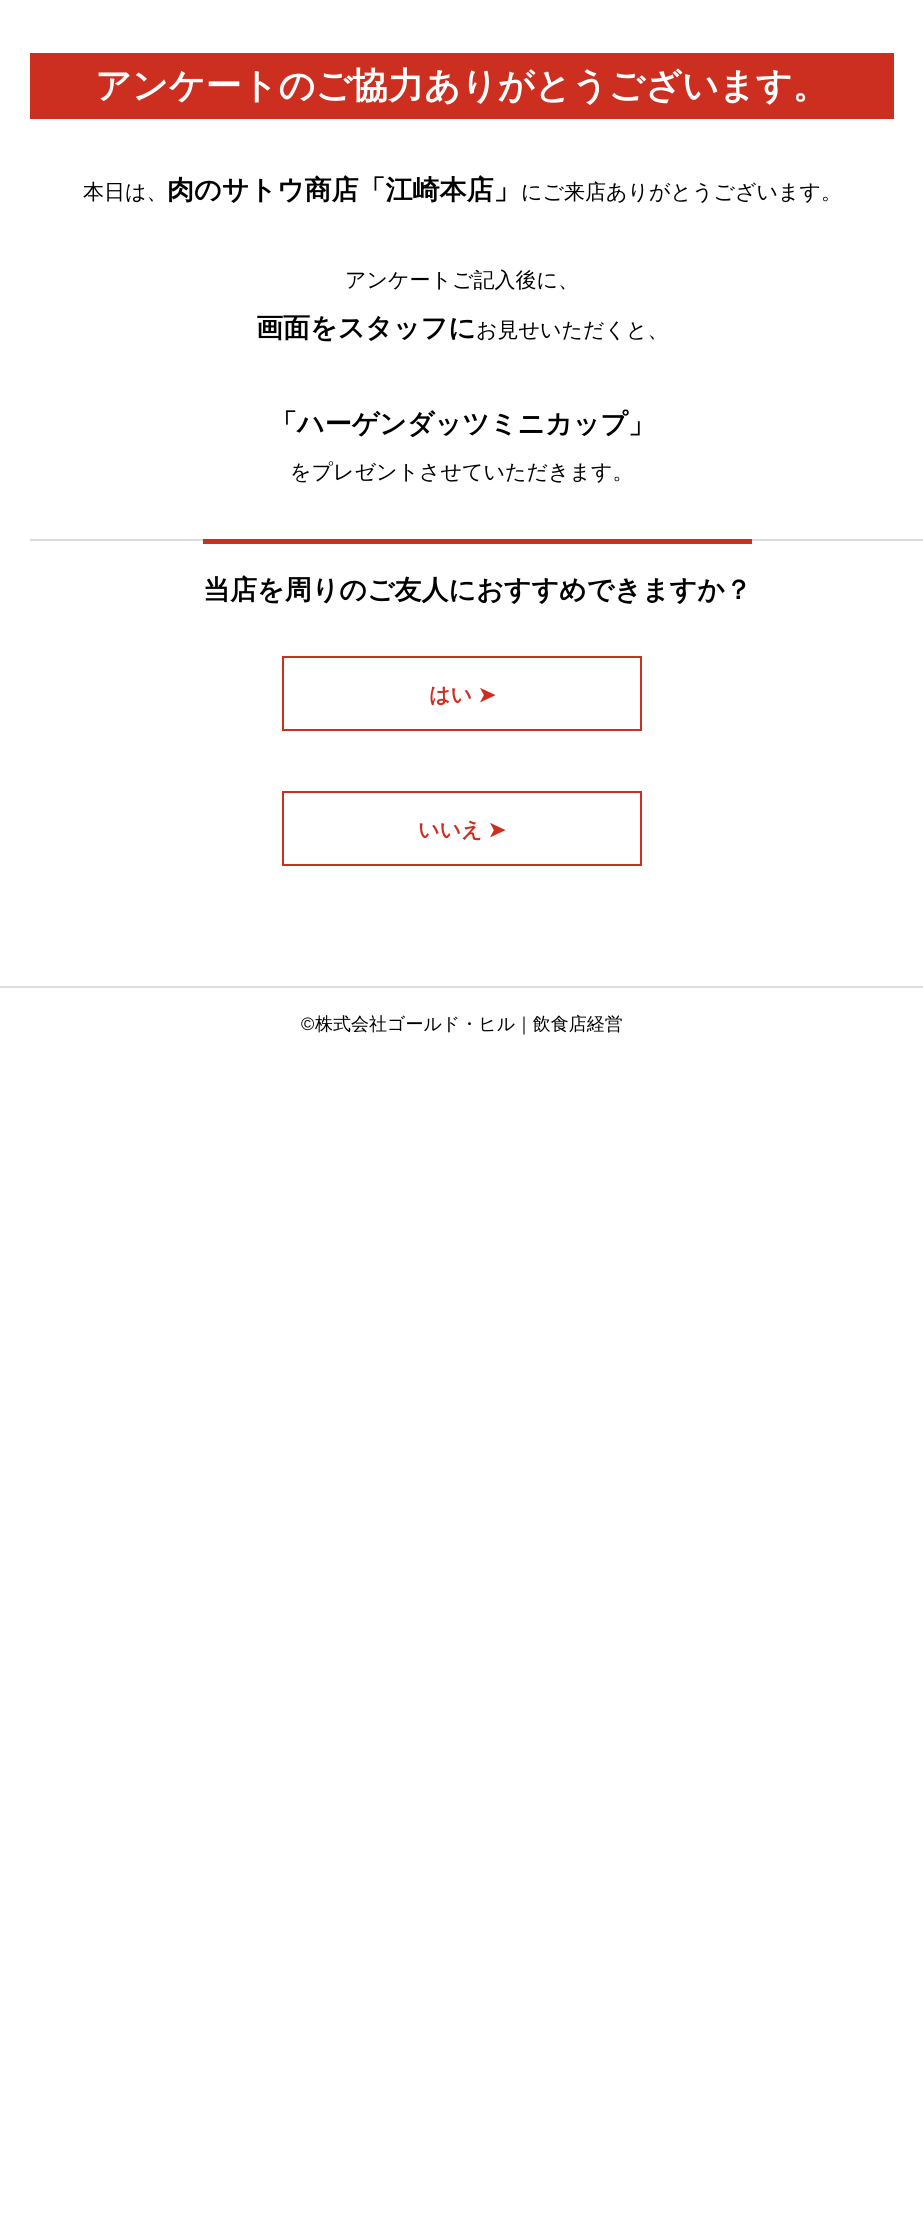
import math
import cairocffi as cairo

surface = cairo.ImageSurface(cairo.FORMAT_RGB24, 923, 2237)
ctx = cairo.Context(surface)
options = cairo.FontOptions()
options.set_hint_metrics(cairo.HINT_METRICS_OFF)
options.set_hint_style(cairo.HINT_STYLE_NONE)
ctx.set_font_options(options)
ctx.set_miter_limit(4)


def rgb(r, g, b):
    ctx.set_source_rgb(r / 255, g / 255, b / 255)


def face(family, size, italic, bold):
    ctx.select_font_face(family, cairo.FONT_SLANT_ITALIC if italic else cairo.FONT_SLANT_NORMAL, cairo.FONT_WEIGHT_BOLD if bold else cairo.FONT_WEIGHT_NORMAL)
    ctx.set_font_size(size)


def label(x, y, s):
    ctx.move_to(x, y)
    ctx.show_text(s)


def rect(x, y, w, h):
    ctx.rectangle(x, y, w, h)
    ctx.fill()


rgb(255, 255, 255)
ctx.paint()
rgb(204, 47, 32)
rect(30, 53, 864, 66)
face('WenQuanYi Zen Hei', 36, 0, 1)
rgb(255, 255, 255)
label(95, 98, 'アンケートのご協力ありがとうございます。')
face('WenQuanYi Zen Hei Medium', 21, 0, 0)
rgb(0, 0, 0)
label(83, 199, '本日は、')
face('WenQuanYi Zen Hei', 27, 0, 1)
label(167, 199, '肉のサトウ商店「江崎本店」')
face('WenQuanYi Zen Hei Medium', 21, 0, 0)
label(521, 199, 'にご来店ありがとうございます。')
label(345, 287, 'アンケートご記入後に、')
face('WenQuanYi Zen Hei', 27, 0, 1)
label(256, 337, '画面をスタッフに')
face('WenQuanYi Zen Hei Medium', 21, 0, 0)
label(476, 337, 'お見せいただくと、')
face('WenQuanYi Zen Hei', 27, 0, 1)
label(270, 433, '「ハーゲンダッツミニカップ」')
face('WenQuanYi Zen Hei Medium', 21, 0, 0)
label(290, 479, 'をプレゼントさせていただきます。')
rgb(221, 221, 221)
rect(30, 539, 893, 2)
rgb(204, 47, 32)
rect(203, 539, 549, 5)
face('WenQuanYi Zen Hei', 27, 0, 1)
rgb(0, 0, 0)
label(203, 599, '当店を周りのご友人におすすめできますか？')
ctx.rectangle(283, 657, 358, 73)
rgb(204, 47, 32)
ctx.stroke()
face('WenQuanYi Zen Hei', 21, 0, 1)
label(429, 702, 'はい')
face('DejaVu Sans', 21, 0, 1)
label(478, 702, '➤')
ctx.rectangle(283, 792, 358, 73)
ctx.stroke()
face('WenQuanYi Zen Hei', 21, 0, 1)
label(418, 837, 'いいえ')
face('DejaVu Sans', 21, 0, 1)
label(488, 837, '➤')
rgb(221, 221, 221)
rect(0, 986, 923, 2)
face('Liberation Sans', 18, 0, 0)
rgb(0, 0, 0)
label(301, 1030, '©')
face('WenQuanYi Zen Hei Medium', 18, 0, 0)
label(315, 1030, '株式会社ゴールド・ヒル｜飲食店経営')
surface.write_to_png('render.png')
